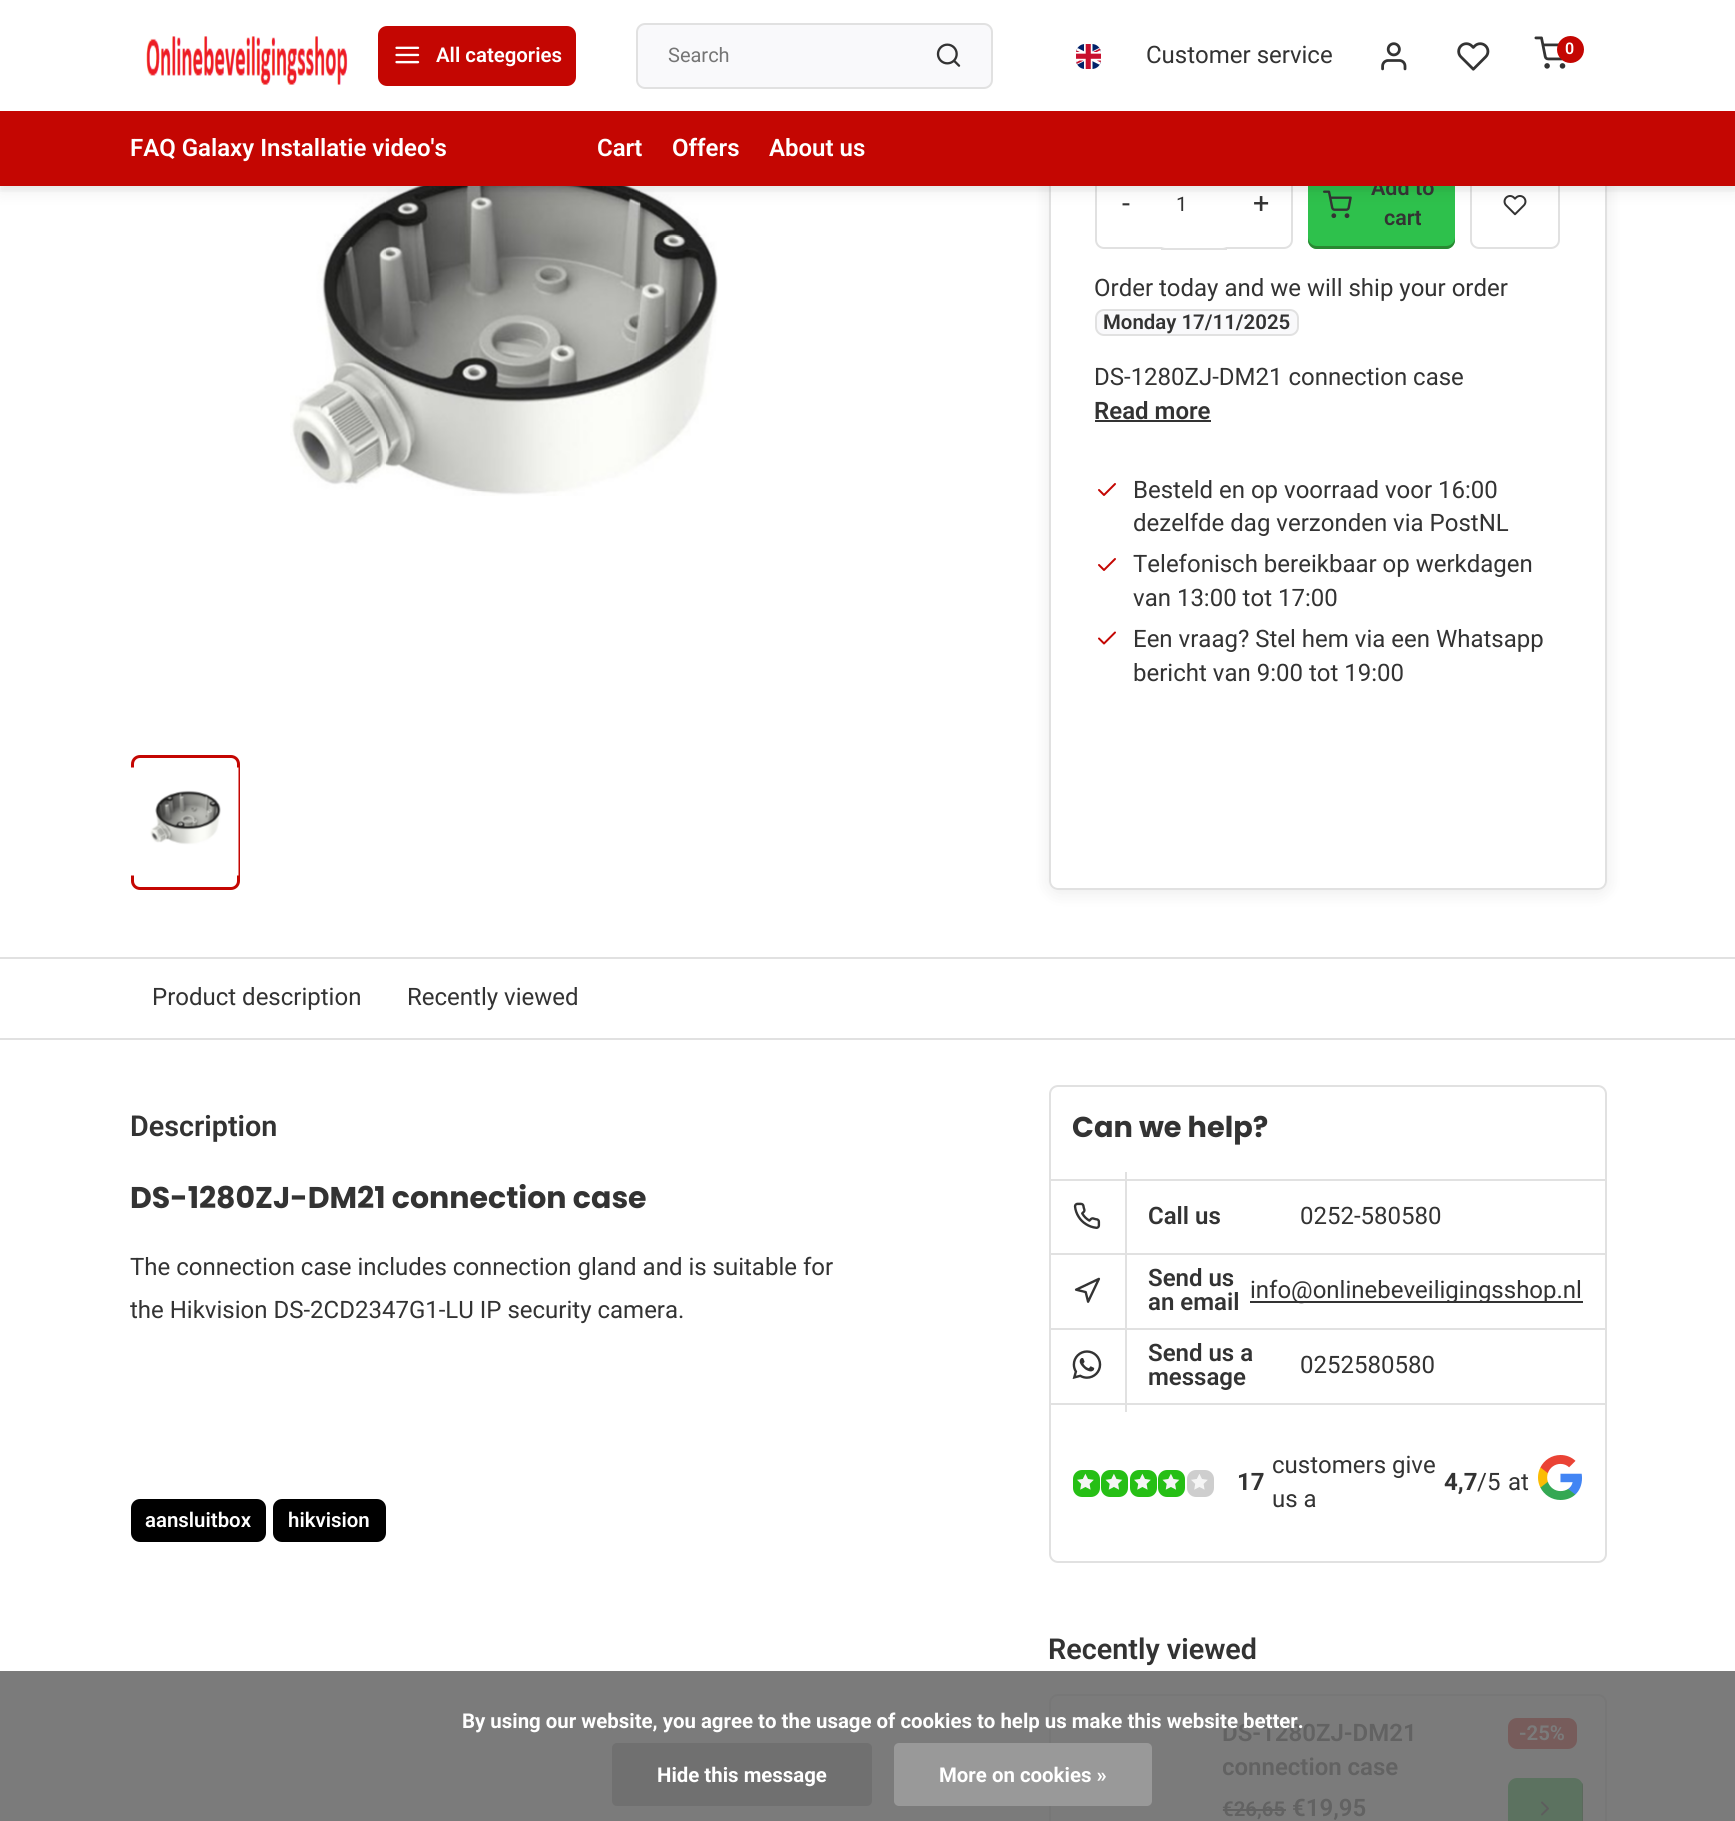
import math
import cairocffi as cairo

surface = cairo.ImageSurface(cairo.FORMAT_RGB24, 1735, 1821)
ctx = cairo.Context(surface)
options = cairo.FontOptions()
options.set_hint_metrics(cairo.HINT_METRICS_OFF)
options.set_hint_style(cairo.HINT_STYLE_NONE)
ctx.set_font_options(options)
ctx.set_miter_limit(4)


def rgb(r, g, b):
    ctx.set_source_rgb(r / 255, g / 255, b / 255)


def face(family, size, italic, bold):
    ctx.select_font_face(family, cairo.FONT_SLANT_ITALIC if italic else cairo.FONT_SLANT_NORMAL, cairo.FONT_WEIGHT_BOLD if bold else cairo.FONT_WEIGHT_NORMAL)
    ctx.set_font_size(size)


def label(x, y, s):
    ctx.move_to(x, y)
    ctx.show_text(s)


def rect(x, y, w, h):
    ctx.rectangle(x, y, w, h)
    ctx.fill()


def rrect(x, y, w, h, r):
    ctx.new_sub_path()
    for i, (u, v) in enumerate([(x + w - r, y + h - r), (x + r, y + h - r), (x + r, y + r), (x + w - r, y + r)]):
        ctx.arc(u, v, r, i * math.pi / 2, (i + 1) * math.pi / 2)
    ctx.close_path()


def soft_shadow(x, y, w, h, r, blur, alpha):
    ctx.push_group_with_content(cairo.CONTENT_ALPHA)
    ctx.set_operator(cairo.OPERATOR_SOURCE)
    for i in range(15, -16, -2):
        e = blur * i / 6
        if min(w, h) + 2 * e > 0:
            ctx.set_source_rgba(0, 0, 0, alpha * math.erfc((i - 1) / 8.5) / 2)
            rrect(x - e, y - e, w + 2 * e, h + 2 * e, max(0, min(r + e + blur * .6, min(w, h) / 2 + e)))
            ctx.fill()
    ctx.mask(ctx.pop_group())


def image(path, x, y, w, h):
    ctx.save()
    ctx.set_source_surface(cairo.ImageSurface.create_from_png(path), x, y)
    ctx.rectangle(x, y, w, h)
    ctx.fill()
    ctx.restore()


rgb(255, 255, 255)
ctx.paint()
rgb(123, 123, 123)
rect(0, 1671, 1735, 150)
image('image7.png', 290, 186, 428, 310)
ctx.save()
ctx.set_fill_rule(cairo.FILL_RULE_EVEN_ODD)
ctx.new_path()
ctx.move_to(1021, 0)
ctx.line_to(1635, 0)
ctx.line_to(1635, 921)
ctx.line_to(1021, 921)
ctx.close_path()
ctx.move_to(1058, -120)
ctx.line_to(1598, -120)
ctx.curve_to(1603, -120, 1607, -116, 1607, -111)
ctx.line_to(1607, 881)
ctx.curve_to(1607, 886, 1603, 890, 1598, 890)
ctx.line_to(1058, 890)
ctx.curve_to(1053, 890, 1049, 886, 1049, 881)
ctx.line_to(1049, -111)
ctx.curve_to(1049, -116, 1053, -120, 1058, -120)
ctx.close_path()
ctx.clip()
rgb(0, 0, 0)
soft_shadow(1049, -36, 558, 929, 9, 9, 0.08)
ctx.restore()
rrect(1050, -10, 556, 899, 8)
rgb(225, 225, 225)
ctx.stroke()
rrect(1096, 160, 196, 88, 8)
ctx.stroke()
rgb(255, 255, 255)
ctx.new_path()
ctx.move_to(1166, 160)
ctx.line_to(1222, 160)
ctx.curve_to(1227, 160, 1232, 164, 1232, 168)
ctx.line_to(1232, 240)
ctx.curve_to(1232, 244, 1227, 248, 1222, 248)
ctx.line_to(1166, 248)
ctx.curve_to(1161, 248, 1156, 244, 1156, 240)
ctx.line_to(1156, 168)
ctx.curve_to(1156, 164, 1161, 160, 1166, 160)
ctx.close_path()
ctx.fill()
rgb(46, 193, 76)
rrect(1308, 159, 147, 90, 9)
ctx.fill()
image('image9.png', 1323, 190, 29, 29)
rrect(1471, 160, 88, 88, 8)
rgb(225, 225, 225)
ctx.stroke()
image('image10.png', 1503, 195, 24, 21)
rgb(0, 0, 0)
soft_shadow(0, 8, 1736, 186, 0, 7.5, 0.05)
rgb(255, 255, 255)
rect(0, 0, 1735, 111)
ctx.save()
ctx.rectangle(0, 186, 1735, 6)
ctx.clip()
rgb(0, 0, 0)
soft_shadow(0, 5, 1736, 186, 0, 3, 0.05)
ctx.restore()
image('image0.png', 146, 36, 202, 49)
rgb(196, 6, 2)
rrect(378, 26, 198, 60, 9)
ctx.fill()
image('image1.png', 395, 46, 25, 18)
face('Roboto SemiBold', 20.4, 0, 0)
rgb(255, 255, 255)
label(436, 62, 'All categories')
rgb(249, 249, 251)
rrect(637, 24, 355, 64, 8)
ctx.fill_preserve()
rgb(225, 225, 225)
ctx.stroke()
face('Roboto', 20, 0, 0)
rgb(117, 117, 117)
label(668, 62, 'Search')
image('image2.png', 936, 43, 25, 24)
image('image3.png', 1076, 44, 25, 25)
face('Roboto', 24, 0, 0)
rgb(51, 51, 51)
label(1146, 63, 'Customer service')
image('image4.png', 1381, 42, 26, 29)
image('image5.png', 1457, 42, 33, 29)
image('image6.png', 1534, 36, 32, 33)
rgb(196, 6, 2)
ctx.arc(1570.5, 49.5, 13.5, 0, 2 * math.pi)
ctx.fill()
face('Roboto SemiBold', 16, 0, 0)
rgb(255, 255, 255)
label(1565, 54, '0')
face('Roboto SemiBold', 21.5, 0, 0)
rgb(51, 51, 51)
label(1371, 195, 'Add to')
rgb(196, 6, 2)
rect(0, 111, 1735, 75)
face('Roboto SemiBold', 24, 0, 0)
rgb(255, 255, 255)
label(130, 156, 'FAQ Galaxy Installatie video\'s')
label(597, 156, 'Cart')
label(672, 156, 'Offers')
label(769, 156, 'About us')
rrect(132.5, 756.5, 106, 132, 7.5)
rgb(196, 6, 2)
ctx.set_line_width(3)
ctx.stroke()
image('image8.png', 131, 767, 108, 109)
face('Roboto', 28.75, 0, 0)
rgb(51, 51, 51)
label(1122, 213, '-')
rgb(225, 225, 225)
rect(1161, 249, 66, 1)
face('Roboto', 20, 0, 0)
rgb(51, 51, 51)
label(1176, 211, '1')
face('Roboto', 28.75, 0, 0)
label(1253, 213, '+')
rgb(41, 136, 49)
ctx.new_path()
ctx.move_to(1308, 237)
ctx.line_to(1308, 240)
ctx.curve_to(1308, 245, 1312, 249, 1317, 249)
ctx.line_to(1446, 249)
ctx.curve_to(1451, 249, 1455, 245, 1455, 240)
ctx.line_to(1455, 237)
ctx.curve_to(1455, 242, 1451, 246, 1446, 246)
ctx.line_to(1317, 246)
ctx.curve_to(1312, 246, 1308, 242, 1308, 237)
ctx.close_path()
ctx.fill()
face('Roboto SemiBold', 21.5, 0, 0)
rgb(51, 51, 51)
label(1384, 225, 'cart')
face('Roboto', 24, 0, 0)
label(1094, 296, 'Order today and we will ship your order')
rgb(249, 249, 251)
rrect(1096, 310, 202, 25, 8)
ctx.fill_preserve()
rgb(225, 225, 225)
ctx.set_line_width(2)
ctx.stroke()
face('Roboto SemiBold', 20.4, 0, 0)
rgb(51, 51, 51)
label(1103, 329, 'Monday 17/11/2025')
face('Roboto', 24, 0, 0)
label(1094, 385, 'DS-1280ZJ-DM21 connection case')
face('Roboto SemiBold', 24, 0, 0)
label(1094, 419, 'Read more')
rect(1095, 420, 116, 2)
image('image11.png', 1098, 483, 18, 13)
face('Roboto', 24, 0, 0)
label(1133, 498, 'Besteld en op voorraad voor 16:00')
label(1133, 531, 'dezelfde dag verzonden via PostNL')
image('image11.png', 1098, 558, 18, 13)
label(1133, 572, 'Telefonisch bereikbaar op werkdagen')
label(1133, 606, 'van 13:00 tot 17:00')
image('image12.png', 1098, 631, 18, 14)
label(1133, 647, 'Een vraag? Stel hem via een Whatsapp')
label(1133, 681, 'bericht van 9:00 tot 19:00')
rgb(225, 225, 225)
rect(0, 957, 1735, 2)
rect(0, 1038, 1735, 2)
rgb(51, 51, 51)
label(152, 1005, 'Product description')
label(407, 1005, 'Recently viewed')
face('Roboto SemiBold', 28.75, 0, 0)
label(130, 1136, 'Description')
face('Poppins', 30, 0, 1)
label(130, 1208, 'DS-1280ZJ-DM21 connection case')
face('Roboto', 24, 0, 0)
label(130, 1275, 'The connection case includes connection gland and is suitable for')
label(130, 1318, 'the Hikvision DS-2CD2347G1-LU IP security camera.')
rgb(0, 0, 0)
rrect(131, 1499, 135, 43, 9)
ctx.fill()
face('Roboto SemiBold', 20.4, 0, 0)
rgb(255, 255, 255)
label(145, 1527, 'aansluitbox')
rgb(0, 0, 0)
rrect(273, 1499, 113, 43, 9)
ctx.fill()
rgb(255, 255, 255)
label(288, 1527, 'hikvision')
rrect(1050, 1086, 556, 476, 8)
rgb(225, 225, 225)
ctx.stroke()
face('Poppins', 28.75, 0, 1)
rgb(51, 51, 51)
label(1072, 1137, 'Can we help?')
rgb(225, 225, 225)
rect(1050, 1179, 555, 2)
rect(1050, 1253, 555, 2)
rect(1050, 1328, 555, 2)
rect(1050, 1403, 555, 2)
rect(1125, 1172, 2, 240)
image('image13.png', 1073, 1202, 28, 27)
face('Roboto SemiBold', 24, 0, 0)
rgb(51, 51, 51)
label(1148, 1224, 'Call us')
face('Roboto', 24, 0, 0)
label(1300, 1224, '0252-580580')
image('image14.png', 1074, 1277, 27, 26)
face('Roboto SemiBold', 24, 0, 0)
label(1148, 1286, 'Send us')
label(1148, 1310, 'an email')
rect(1250, 1301, 333, 2)
face('Roboto', 24, 0, 0)
label(1250, 1298, 'info@onlinebeveiligingsshop.nl')
image('image15.png', 1072, 1350, 30, 29)
face('Roboto SemiBold', 24, 0, 0)
label(1148, 1361, 'Send us a')
label(1148, 1385, 'message')
face('Roboto', 24, 0, 0)
label(1300, 1373, '0252580580')
rgb(38, 191, 21)
rrect(1073, 1470, 27, 27, 9)
ctx.fill()
image('image16.png', 1077, 1473, 17, 17)
rrect(1101, 1470, 27, 27, 9)
ctx.fill()
image('image17.png', 1105, 1473, 18, 17)
rrect(1130, 1470, 27, 27, 9)
ctx.fill()
image('image16.png', 1134, 1473, 17, 17)
rrect(1158, 1470, 27, 27, 9)
ctx.fill()
image('image17.png', 1162, 1473, 18, 17)
rgb(206, 206, 206)
rrect(1187, 1470, 27, 27, 9)
ctx.fill()
image('image18.png', 1191, 1474, 17, 16)
face('Roboto', 24, 0, 1)
rgb(51, 51, 51)
label(1237, 1490, '17')
face('Roboto', 24, 0, 0)
label(1272, 1473, 'customers give')
face('Roboto', 24, 0, 1)
label(1444, 1490, '4,7')
face('Roboto', 24, 0, 0)
label(1477, 1490, '/5')
label(1508, 1490, 'at')
image('image19.png', 1538, 1455, 44, 45)
label(1272, 1507, 'us a')
face('Roboto SemiBold', 28.75, 0, 0)
label(1048, 1659, 'Recently viewed')
rrect(1050, 1695, 556, 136, 8)
rgb(119, 119, 119)
ctx.stroke()
face('Roboto SemiBold', 24, 0, 0)
rgb(98, 98, 98)
label(1222, 1741, 'DS-1280ZJ-DM21')
ctx.save()
ctx.rectangle(1223, 1718, 255, 67)
ctx.clip()
label(1222, 1775, 'connection case')
ctx.restore()
face('Roboto SemiBold', 20.4, 0, 0)
label(1222, 1816, '€26,65')
rect(1223, 1809, 63, 2)
face('Roboto SemiBold', 24, 0, 0)
label(1292, 1816, '€19,95')
rgb(119, 92, 91)
rrect(1508, 1718, 69, 31, 9)
ctx.fill()
face('Roboto SemiBold', 20.4, 0, 0)
rgb(123, 123, 123)
label(1519, 1740, '-25%')
rgb(92, 114, 96)
rrect(1508, 1778, 75, 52, 9)
ctx.fill()
rgb(91, 105, 92)
ctx.new_path()
ctx.move_to(1508, 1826)
ctx.line_to(1508, 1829)
ctx.curve_to(1508, 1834, 1512, 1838, 1517, 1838)
ctx.line_to(1574, 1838)
ctx.curve_to(1579, 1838, 1583, 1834, 1583, 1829)
ctx.line_to(1583, 1787)
ctx.curve_to(1583, 1785, 1583, 1784, 1582, 1783)
ctx.line_to(1582, 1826)
ctx.curve_to(1582, 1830, 1578, 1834, 1574, 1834)
ctx.line_to(1516, 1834)
ctx.curve_to(1512, 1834, 1508, 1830, 1508, 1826)
ctx.close_path()
ctx.fill()
image('image20.png', 1541, 1801, 8, 15)
face('Roboto', 20.4, 0, 1)
rgb(255, 255, 255)
label(462, 1728, 'By using our website, you agree to the usage of cookies to help us make this website better.')
rgb(112, 112, 112)
rrect(612, 1743, 260, 63, 5)
ctx.fill()
rgb(255, 255, 255)
label(657, 1782, 'Hide this message')
rgb(153, 153, 153)
rrect(894, 1743, 258, 63, 5)
ctx.fill()
rgb(255, 255, 255)
label(939, 1782, 'More on cookies »')
surface.write_to_png('render.png')
